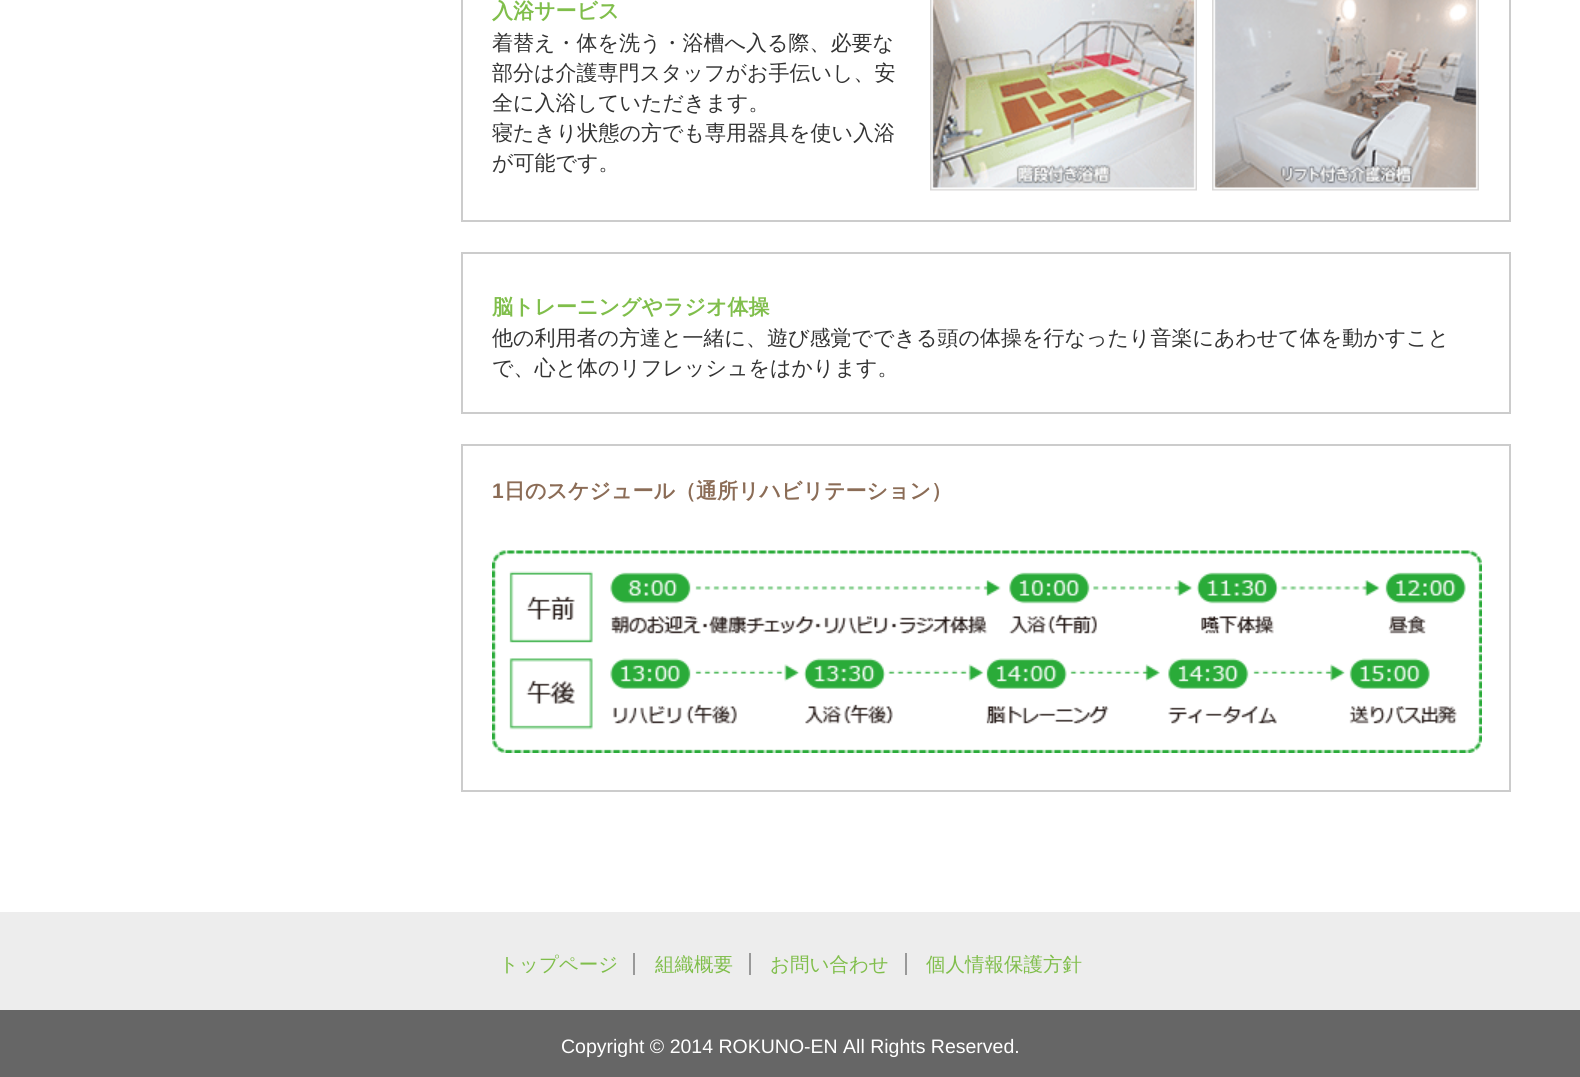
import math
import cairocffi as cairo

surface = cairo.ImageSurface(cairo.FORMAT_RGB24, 1580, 1077)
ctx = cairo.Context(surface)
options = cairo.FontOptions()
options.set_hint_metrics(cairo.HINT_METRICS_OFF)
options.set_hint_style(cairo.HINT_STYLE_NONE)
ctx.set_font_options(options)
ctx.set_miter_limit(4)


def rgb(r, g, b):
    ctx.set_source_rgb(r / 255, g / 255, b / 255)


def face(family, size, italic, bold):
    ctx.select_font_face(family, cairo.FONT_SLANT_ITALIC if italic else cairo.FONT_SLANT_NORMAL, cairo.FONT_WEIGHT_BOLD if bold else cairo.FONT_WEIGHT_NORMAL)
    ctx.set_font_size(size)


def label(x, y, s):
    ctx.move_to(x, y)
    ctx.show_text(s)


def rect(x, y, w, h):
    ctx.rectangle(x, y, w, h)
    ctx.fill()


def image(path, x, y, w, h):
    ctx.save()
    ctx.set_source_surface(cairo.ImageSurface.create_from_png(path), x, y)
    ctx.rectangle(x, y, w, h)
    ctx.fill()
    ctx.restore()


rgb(255, 255, 255)
ctx.paint()
ctx.rectangle(462, -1, 1048, 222)
rgb(204, 204, 204)
ctx.stroke()
face('WenQuanYi Zen Hei', 21, 0, 1)
rgb(128, 190, 75)
label(492, 18, '入浴サービス')
image('image0.png', 930, 0, 267, 191)
image('image1.png', 1212, 0, 267, 191)
face('WenQuanYi Zen Hei Medium', 21, 0, 0)
rgb(51, 51, 51)
label(492, 50, '着替え・体を洗う・浴槽へ入る際、必要な')
label(492, 80, '部分は介護専門スタッフがお手伝いし、安')
label(492, 110, '全に入浴していただきます。')
label(492, 140, '寝たきり状態の方でも専用器具を使い入浴')
label(492, 170, 'が可能です。')
ctx.rectangle(462, 253, 1048, 160)
rgb(204, 204, 204)
ctx.stroke()
face('WenQuanYi Zen Hei', 21, 0, 1)
rgb(128, 190, 75)
label(492, 314, '脳トレーニングやラジオ体操')
face('WenQuanYi Zen Hei Medium', 21, 0, 0)
rgb(51, 51, 51)
label(492, 345, '他の利用者の方達と一緒に、遊び感覚でできる頭の体操を行なったり音楽にあわせて体を動かすこと')
label(492, 375, 'で、心と体のリフレッシュをはかります。')
ctx.rectangle(462, 445, 1048, 346)
rgb(204, 204, 204)
ctx.stroke()
face('Liberation Sans', 21, 0, 1)
rgb(139, 108, 86)
label(492, 498, '1')
face('WenQuanYi Zen Hei', 21, 0, 1)
label(504, 498, '日のスケジュール（通所リハビリテーション）')
image('image2.png', 492, 550, 990, 203)
rgb(237, 237, 237)
rect(0, 912, 1580, 98)
face('WenQuanYi Zen Hei Medium', 19.5, 0, 0)
rgb(128, 190, 75)
label(499, 971, 'トップページ')
rgb(153, 153, 153)
rect(633, 953, 2, 22)
rgb(128, 190, 75)
label(655, 971, '組織概要')
rgb(153, 153, 153)
rect(749, 953, 2, 22)
rgb(128, 190, 75)
label(770, 971, 'お問い合わせ')
rgb(153, 153, 153)
rect(905, 953, 2, 22)
rgb(128, 190, 75)
label(926, 971, '個人情報保護方針')
rgb(102, 102, 102)
rect(0, 1010, 1580, 67)
face('Liberation Sans', 19.5, 0, 0)
rgb(255, 255, 255)
label(561, 1053, 'Copyright © 2014 ROKUNO-EN All Rights Reserved.')
surface.write_to_png('render.png')
